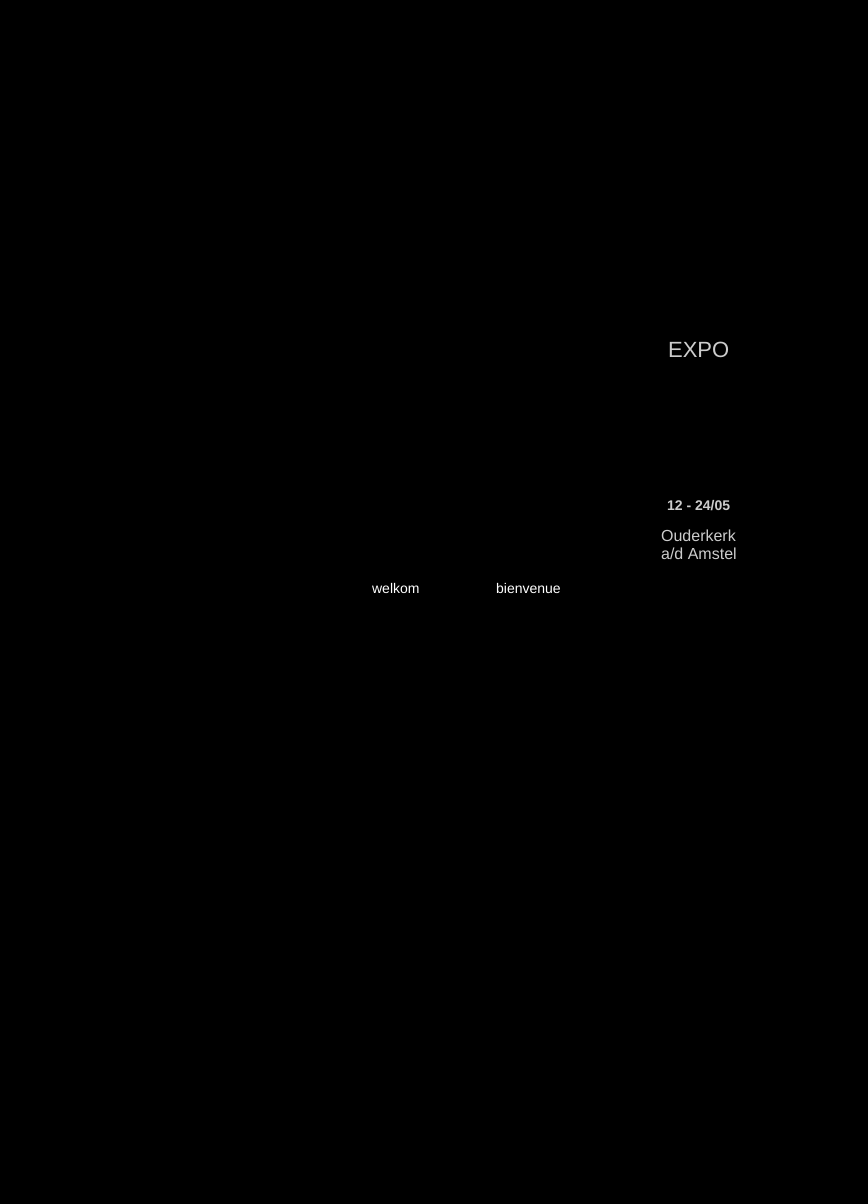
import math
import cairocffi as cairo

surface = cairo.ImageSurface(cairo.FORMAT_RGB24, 868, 1204)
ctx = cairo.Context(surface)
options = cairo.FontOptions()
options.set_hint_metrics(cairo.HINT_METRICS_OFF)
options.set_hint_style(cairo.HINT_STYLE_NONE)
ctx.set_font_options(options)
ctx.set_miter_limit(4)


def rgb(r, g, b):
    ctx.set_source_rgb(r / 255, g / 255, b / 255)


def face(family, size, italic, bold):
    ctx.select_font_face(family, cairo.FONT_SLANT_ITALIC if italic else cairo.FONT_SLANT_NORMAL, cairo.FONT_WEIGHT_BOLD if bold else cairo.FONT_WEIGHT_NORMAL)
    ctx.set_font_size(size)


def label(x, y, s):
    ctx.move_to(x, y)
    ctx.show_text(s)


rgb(0, 0, 0)
ctx.paint()
face('Liberation Sans', 22, 0, 0)
rgb(204, 204, 204)
label(668, 357, 'EXPO')
face('Liberation Sans', 14, 0, 1)
label(667, 510, '12 - 24/05')
face('Liberation Sans', 16, 0, 0)
label(661, 541, 'Ouderkerk')
label(661, 559, 'a/d Amstel')
face('Liberation Sans', 14, 0, 0)
rgb(255, 255, 255)
label(372, 593, 'welkom')
label(496, 593, 'bienvenue')
surface.write_to_png('render.png')
